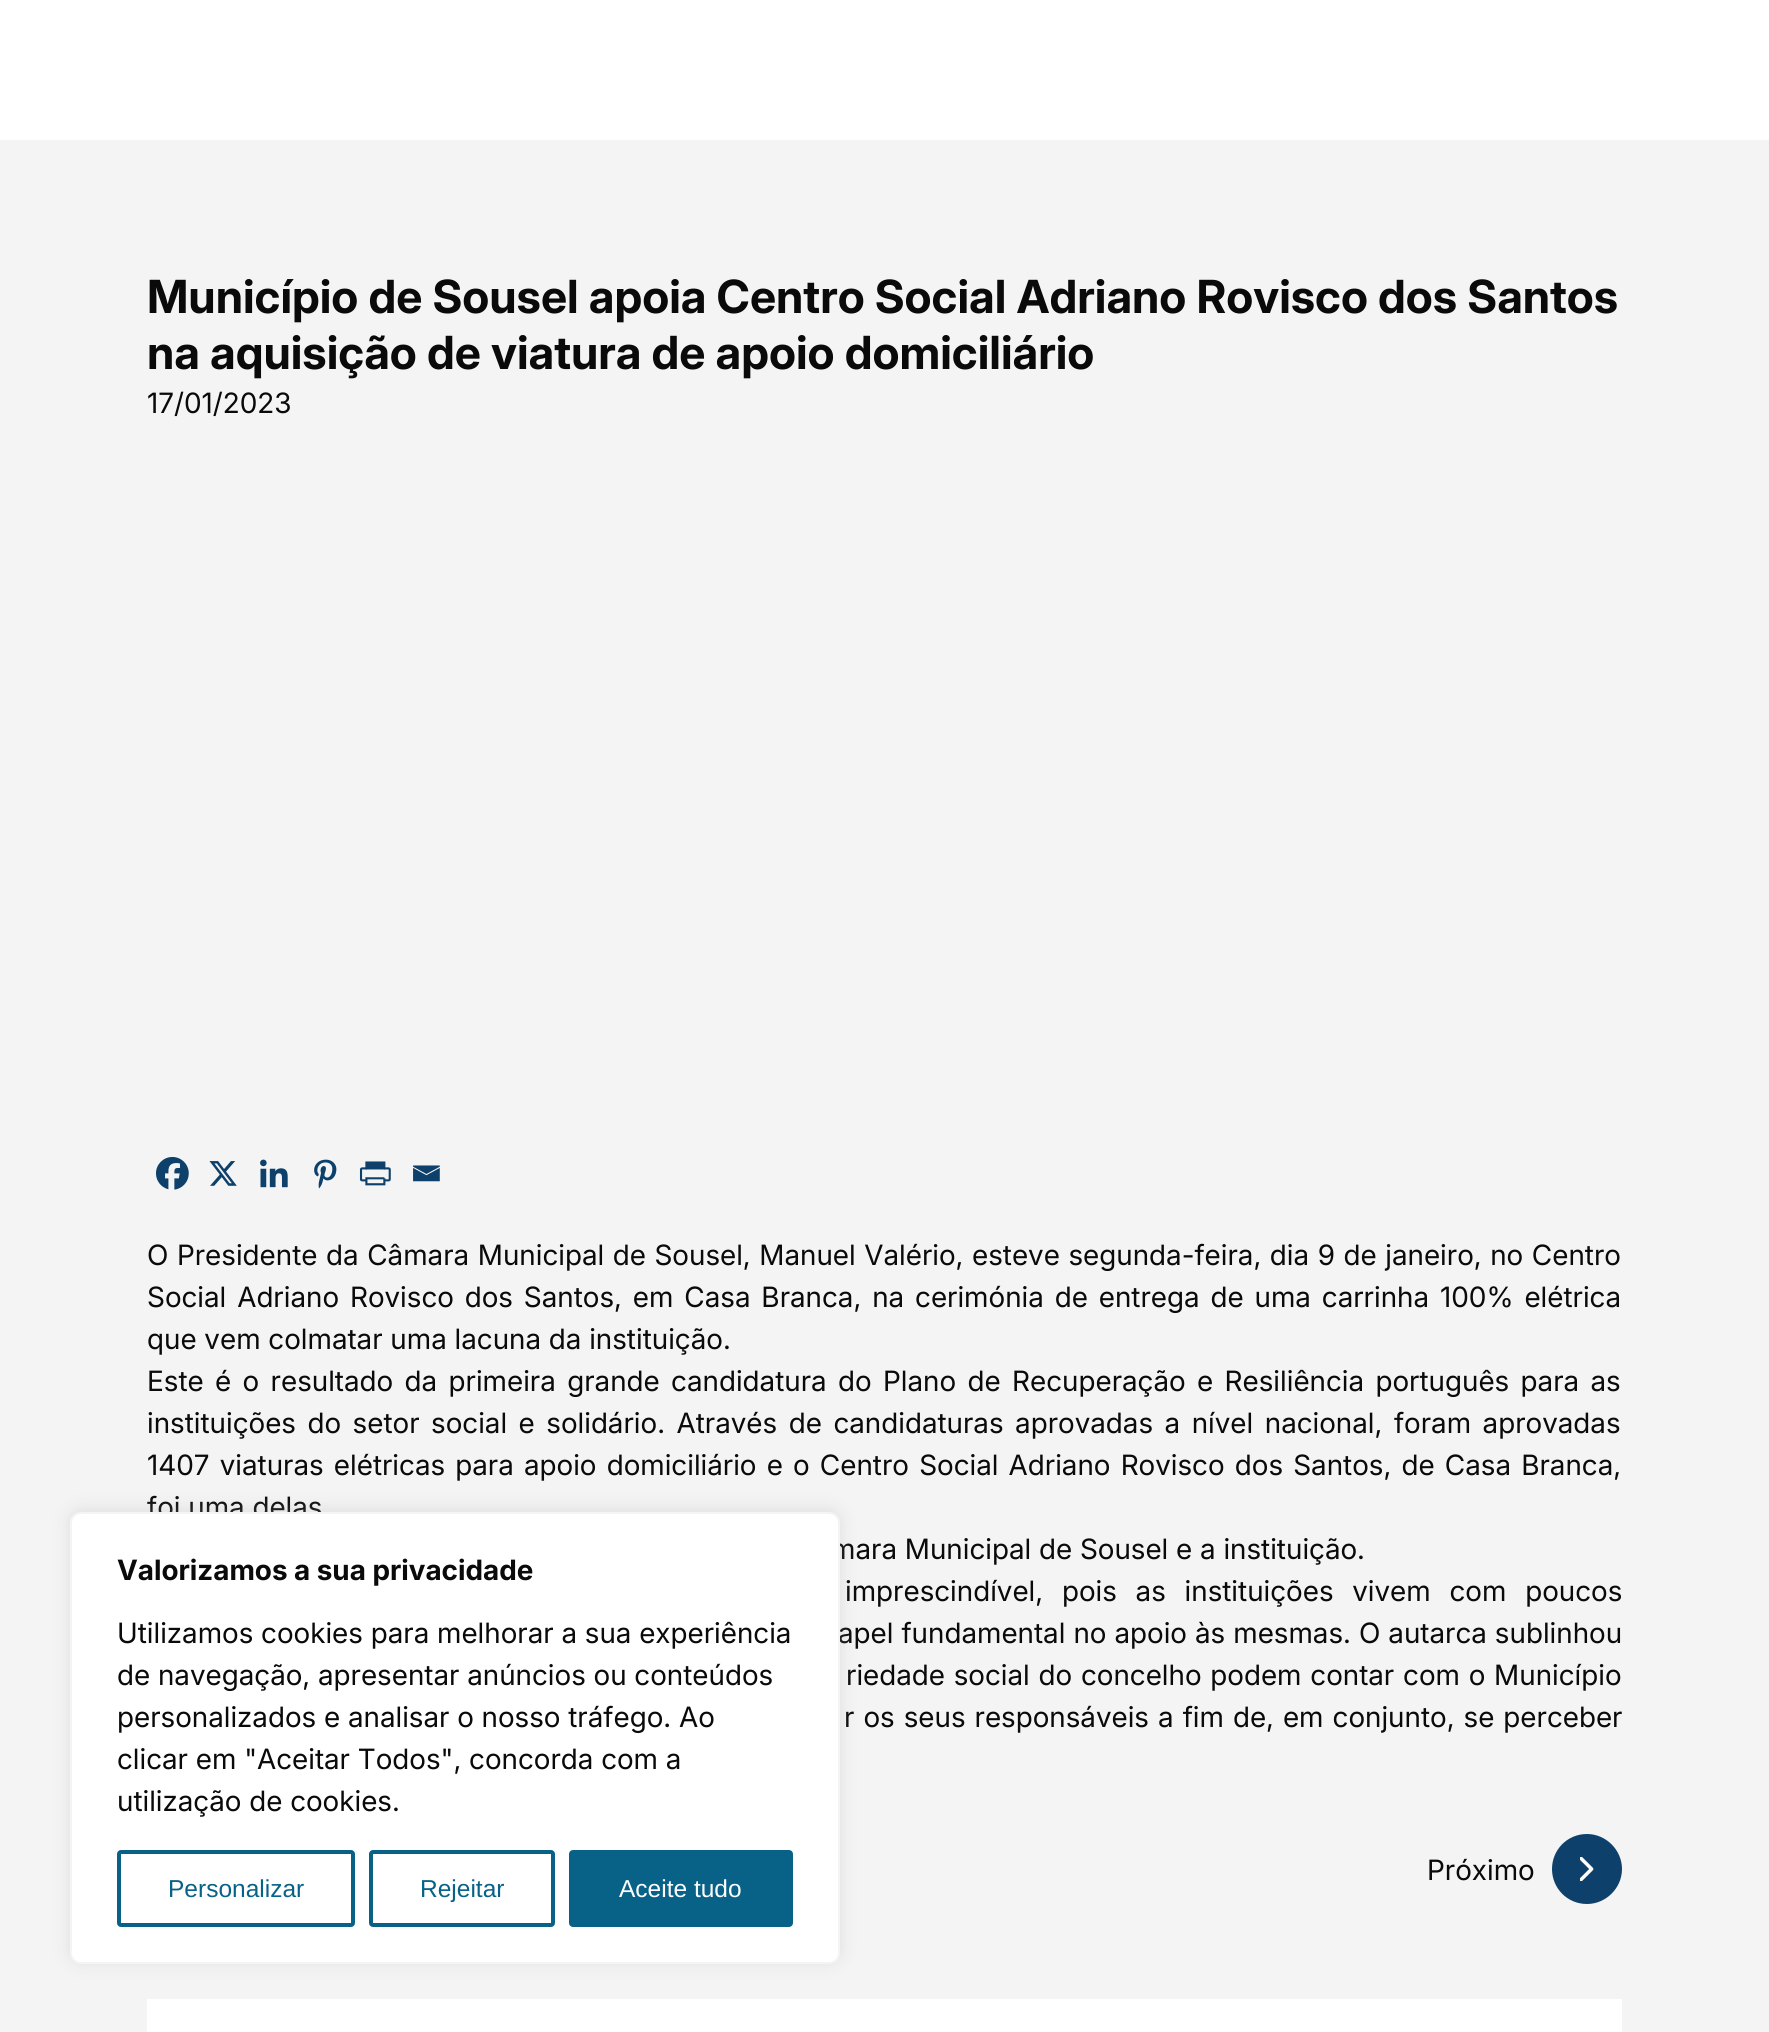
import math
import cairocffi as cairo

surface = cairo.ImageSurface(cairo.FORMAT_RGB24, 1769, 2032)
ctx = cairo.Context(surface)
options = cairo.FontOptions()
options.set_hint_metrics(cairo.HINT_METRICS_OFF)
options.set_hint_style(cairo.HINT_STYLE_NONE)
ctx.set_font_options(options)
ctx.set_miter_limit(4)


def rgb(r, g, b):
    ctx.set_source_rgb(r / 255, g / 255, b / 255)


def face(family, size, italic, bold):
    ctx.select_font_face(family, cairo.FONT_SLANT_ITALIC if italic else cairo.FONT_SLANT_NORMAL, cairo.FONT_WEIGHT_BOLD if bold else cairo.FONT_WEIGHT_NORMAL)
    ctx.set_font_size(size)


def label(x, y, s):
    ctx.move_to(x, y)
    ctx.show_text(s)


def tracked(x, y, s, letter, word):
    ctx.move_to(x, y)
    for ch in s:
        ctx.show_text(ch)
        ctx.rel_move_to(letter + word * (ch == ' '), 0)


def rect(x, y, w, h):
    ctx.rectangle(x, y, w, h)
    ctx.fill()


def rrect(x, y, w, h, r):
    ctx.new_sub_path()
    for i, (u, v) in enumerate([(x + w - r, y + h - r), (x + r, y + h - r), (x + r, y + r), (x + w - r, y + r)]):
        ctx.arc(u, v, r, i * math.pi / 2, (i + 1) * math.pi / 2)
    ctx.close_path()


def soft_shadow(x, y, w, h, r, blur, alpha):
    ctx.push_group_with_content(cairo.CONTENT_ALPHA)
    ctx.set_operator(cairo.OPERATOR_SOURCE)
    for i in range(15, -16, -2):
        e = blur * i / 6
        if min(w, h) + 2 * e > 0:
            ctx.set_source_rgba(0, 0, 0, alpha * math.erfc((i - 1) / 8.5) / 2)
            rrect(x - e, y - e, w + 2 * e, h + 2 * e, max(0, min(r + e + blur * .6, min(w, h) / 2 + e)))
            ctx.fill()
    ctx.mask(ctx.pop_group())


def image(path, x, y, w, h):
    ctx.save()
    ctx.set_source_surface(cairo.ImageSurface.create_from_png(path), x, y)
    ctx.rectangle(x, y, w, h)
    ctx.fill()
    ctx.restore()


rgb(244, 244, 244)
ctx.paint()
rgb(255, 255, 255)
rect(0, 0, 1769, 140)
face('Inter', 45.65, 0, 1)
rgb(10, 10, 10)
label(147, 313, 'Município de Sousel apoia Centro Social Adriano Rovisco dos Santos')
label(147, 369, 'na aquisição de viatura de apoio domiciliário')
face('Inter', 28, 0, 0)
label(147, 413, '17/01/2023')
image('image0.png', 156, 1157, 33, 33)
image('image1.png', 209, 1161, 28, 25)
image('image2.png', 260, 1159, 28, 29)
image('image3.png', 314, 1159, 23, 30)
image('image4.png', 359, 1161, 32, 25)
image('image5.png', 413, 1165, 27, 17)
tracked(147, 1265, 'O Presidente da Câmara Municipal de Sousel, Manuel Valério, esteve segunda-feira, dia 9 de janeiro, no Centro', 0, 0.8)
tracked(147, 1307, 'Social Adriano Rovisco dos Santos, em Casa Branca, na cerimónia de entrega de uma carrinha 100% elétrica', 0, 3.1)
label(147, 1349, 'que vem colmatar uma lacuna da instituição.')
tracked(147, 1391, 'Este é o resultado da primeira grande candidatura do Plano de Recuperação e Resiliência português para as', 0, 3.6)
tracked(147, 1433, 'instituições do setor social e solidário. Através de candidaturas aprovadas a nível nacional, foram aprovadas', 0, 3.75)
tracked(147, 1475, '1407 viaturas elétricas para apoio domiciliário e o Centro Social Adriano Rovisco dos Santos, de Casa Branca,', 0, 2.4)
label(147, 1517, 'foi uma delas')
label(831, 1559, 'mara Municipal de Sousel e a instituição.')
tracked(845, 1601, 'imprescindível, pois as instituições vivem com poucos', 0, 11)
tracked(838, 1643, 'apel fundamental no apoio às mesmas. O autarca sublinhou', 0, 0.25)
tracked(846, 1685, 'riedade social do concelho podem contar com o Município', 0, 1)
tracked(844, 1727, 'r os seus responsáveis a fim de, em conjunto, se perceber', 0, 1.25)
label(1427, 1880, 'Próximo')
rgb(13, 64, 106)
ctx.new_path()
ctx.move_to(1587, 1904)
ctx.curve_to(1567, 1904, 1552, 1888, 1552, 1869)
ctx.curve_to(1552, 1850, 1567, 1834, 1587, 1834)
ctx.curve_to(1606, 1834, 1622, 1850, 1622, 1869)
ctx.curve_to(1622, 1888, 1606, 1904, 1587, 1904)
ctx.close_path()
ctx.fill()
image('image6.png', 1580, 1857, 14, 24)
rgb(255, 255, 255)
rect(147, 1999, 1475, 33)
rgb(172, 171, 171)
soft_shadow(70, 1510, 770, 452, 11, 9, 0.3)
rgb(255, 255, 255)
rrect(71, 1513, 768, 450, 10)
ctx.fill_preserve()
rgb(244, 244, 244)
ctx.stroke()
face('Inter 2', 28, 0, 1)
rgb(10, 10, 10)
label(117, 1580, 'Valorizamos a sua privacidade')
face('Inter', 28, 0, 0)
label(117, 1643, 'Utilizamos cookies para melhorar a sua experiência')
label(117, 1685, 'de navegação, apresentar anúncios ou conteúdos')
label(117, 1727, 'personalizados e analisar o nosso tráfego. Ao')
label(117, 1769, 'clicar em "Aceitar Todos", concorda com a')
label(117, 1811, 'utilização de cookies.')
rrect(119, 1852, 234, 73, 2)
rgb(8, 98, 136)
ctx.set_line_width(4)
ctx.stroke()
face('Liberation Sans', 24.5, 0, 0)
label(168, 1897, 'Personalizar')
rrect(371, 1852, 182, 73, 2)
ctx.stroke()
label(420, 1897, 'Rejeitar')
rrect(571, 1852, 220, 73, 2)
ctx.fill_preserve()
ctx.stroke()
rgb(255, 255, 255)
label(619, 1897, 'Aceite tudo')
surface.write_to_png('render.png')
